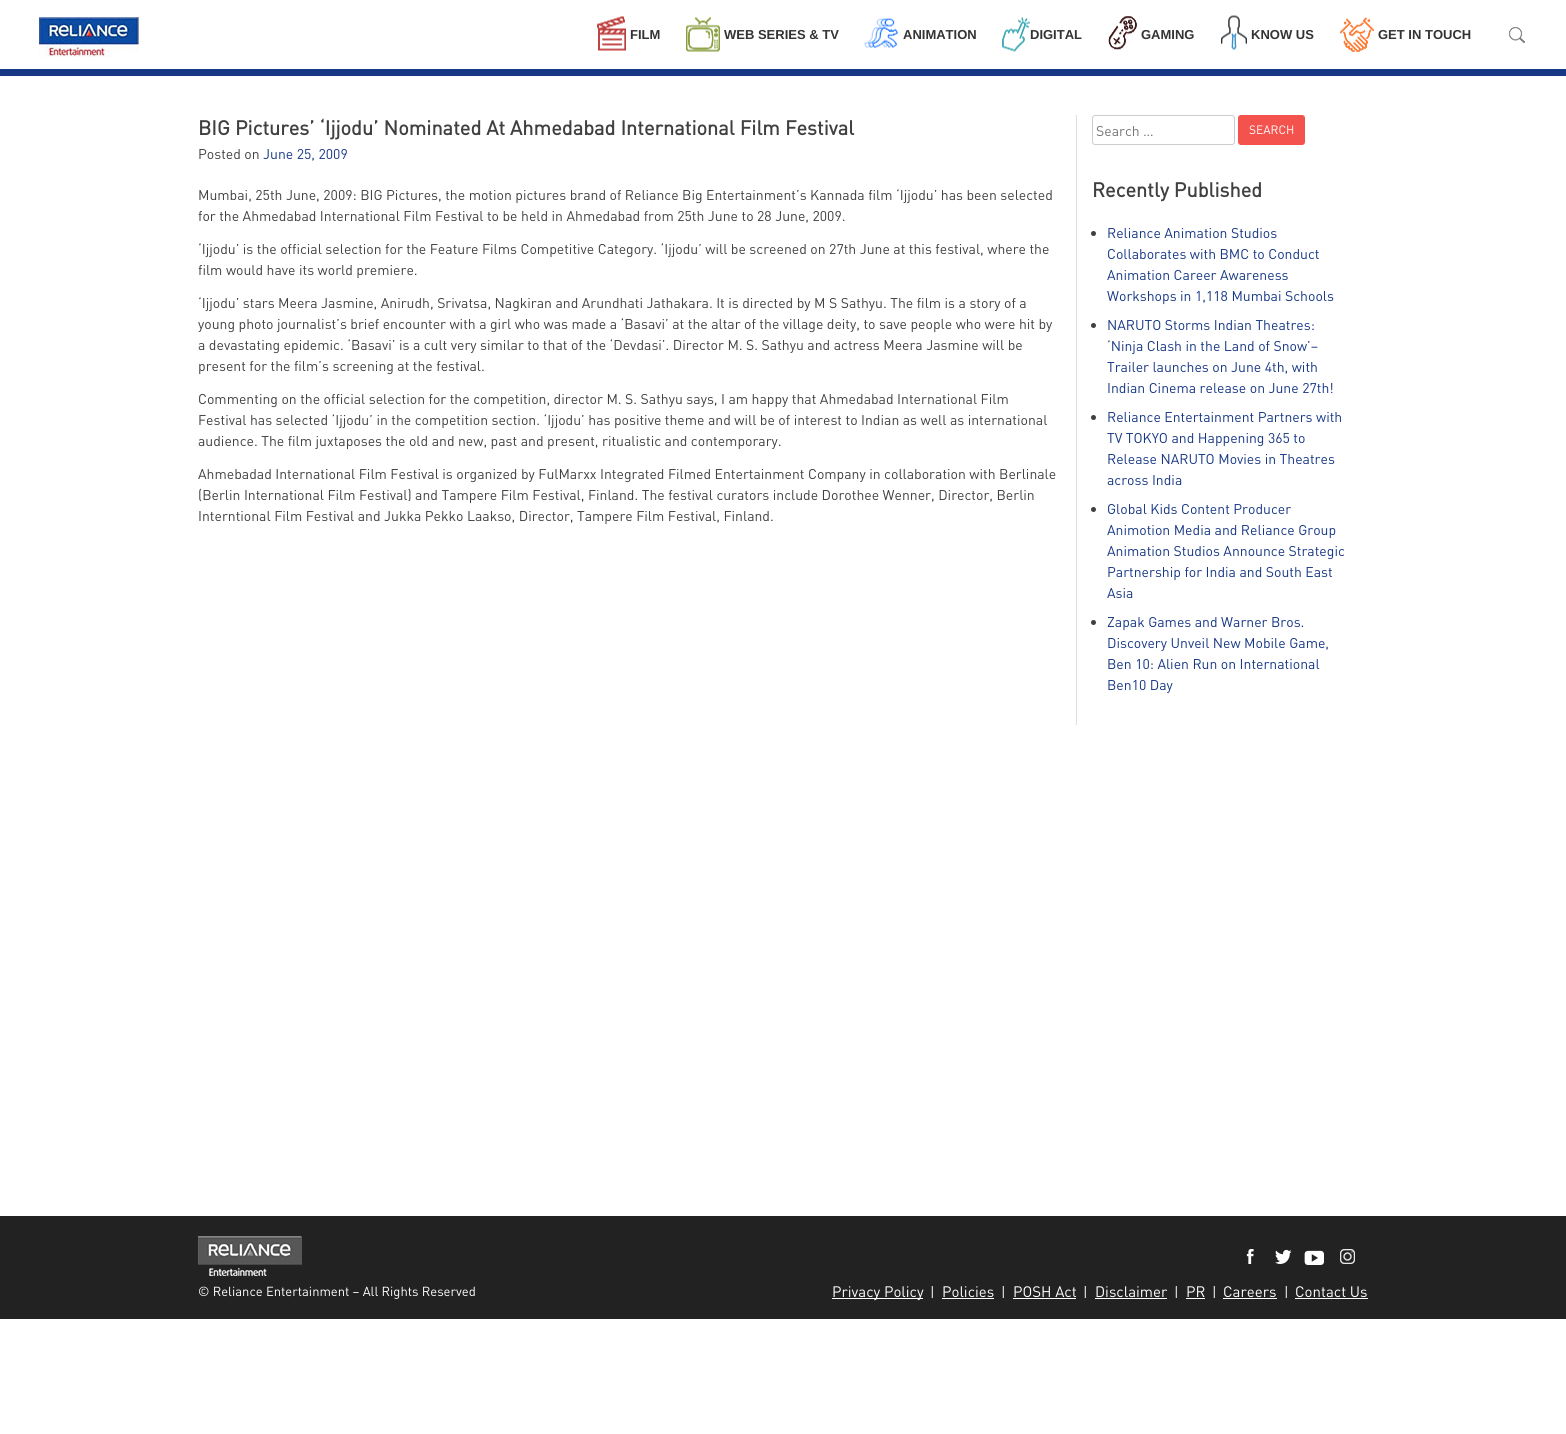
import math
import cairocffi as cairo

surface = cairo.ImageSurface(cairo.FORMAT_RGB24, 1566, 1434)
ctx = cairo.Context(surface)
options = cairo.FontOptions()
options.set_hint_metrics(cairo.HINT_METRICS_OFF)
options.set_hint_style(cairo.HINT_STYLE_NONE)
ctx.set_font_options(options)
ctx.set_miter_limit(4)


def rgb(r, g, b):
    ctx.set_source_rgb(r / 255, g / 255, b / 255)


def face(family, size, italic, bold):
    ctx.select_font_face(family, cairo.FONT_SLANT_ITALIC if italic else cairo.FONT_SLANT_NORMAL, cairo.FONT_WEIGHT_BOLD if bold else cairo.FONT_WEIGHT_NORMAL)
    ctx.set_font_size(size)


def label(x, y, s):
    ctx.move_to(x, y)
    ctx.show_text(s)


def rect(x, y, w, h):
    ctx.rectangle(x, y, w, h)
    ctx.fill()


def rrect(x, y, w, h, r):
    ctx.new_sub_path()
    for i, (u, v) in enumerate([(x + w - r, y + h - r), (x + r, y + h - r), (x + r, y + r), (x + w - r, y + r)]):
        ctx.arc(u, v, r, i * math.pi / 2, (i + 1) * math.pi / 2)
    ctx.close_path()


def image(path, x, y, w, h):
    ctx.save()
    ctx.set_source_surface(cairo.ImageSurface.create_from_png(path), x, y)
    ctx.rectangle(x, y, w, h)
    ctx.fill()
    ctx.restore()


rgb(255, 255, 255)
ctx.paint()
rgb(23, 56, 133)
rect(0, 69, 1566, 7)
image('image0.png', 39, 17, 100, 40)
image('image1.png', 597, 16, 29, 35)
face('Liberation Sans', 13, 0, 1)
rgb(51, 51, 51)
label(630, 39, 'FILM')
image('image2.png', 686, 17, 34, 35)
label(724, 39, 'WEB SERIES & TV')
image('image3.png', 864, 18, 34, 30)
label(903, 39, 'ANIMATION')
image('image4.png', 1002, 17, 28, 35)
label(1030, 39, 'DIGITAL')
image('image5.png', 1108, 16, 29, 34)
label(1141, 39, 'GAMING')
image('image6.png', 1221, 15, 26, 35)
label(1251, 39, 'KNOW US')
image('image7.png', 1340, 17, 34, 35)
label(1378, 39, 'GET IN TOUCH')
image('image8.png', 1509, 27, 16, 16)
face('DIN', 20, 0, 1)
rgb(64, 64, 64)
label(198, 135, 'BIG Pictures’ ‘Ijjodu’ Nominated At Ahmedabad International Film Festival')
face('DIN', 14, 0, 0)
label(198, 159, 'Posted on')
rgb(23, 56, 133)
label(263, 159, 'June 25, 2009')
rgb(64, 64, 64)
label(198, 200, 'Mumbai, 25th June, 2009: BIG Pictures, the motion pictures brand of Reliance Big Entertainment’s Kannada film ‘Ijjodu’ has been selected')
label(198, 221, 'for the Ahmedabad International Film Festival to be held in Ahmedabad from 25th June to 28 June, 2009.')
label(198, 254, '‘Ijjodu’ is the official selection for the Feature Films Competitive Category. ‘Ijjodu’ will be screened on 27th June at this festival, where the')
label(198, 275, 'film would have its world premiere.')
label(198, 308, '‘Ijjodu’ stars Meera Jasmine, Anirudh, Srivatsa, Nagkiran and Arundhati Jathakara. It is directed by M S Sathyu. The film is a story of a')
label(198, 329, 'young photo journalist’s brief encounter with a girl who was made a ‘Basavi’ at the altar of the village deity, to save people who were hit by')
label(198, 350, 'a devastating epidemic. ‘Basavi’ is a cult very similar to that of the ‘Devdasi’. Director M. S. Sathyu and actress Meera Jasmine will be')
label(198, 371, 'present for the film’s screening at the festival.')
label(198, 404, 'Commenting on the official selection for the competition, director M. S. Sathyu says, I am happy that Ahmedabad International Film')
label(198, 425, 'Festival has selected ‘Ijjodu’ in the competition section. ‘Ijjodu’ has positive theme and will be of interest to Indian as well as international')
label(198, 446, 'audience. The film juxtaposes the old and new, past and present, ritualistic and contemporary.')
label(198, 479, 'Ahmebadad International Film Festival is organized by FulMarxx Integrated Filmed Entertainment Company in collaboration with Berlinale')
label(198, 500, '(Berlin International Film Festival) and Tampere Film Festival, Finland. The festival curators include Dorothee Wenner, Director, Berlin')
label(198, 521, 'Interntional Film Festival and Jukka Pekko Laakso, Director, Tampere Film Festival, Finland.')
rgb(221, 221, 221)
rect(1076, 115, 1, 610)
rrect(1092.5, 115.5, 142, 29, 2.5)
rgb(204, 204, 204)
ctx.set_line_width(1)
ctx.stroke()
rgb(117, 117, 117)
label(1096, 136, 'Search …')
rgb(244, 82, 77)
rrect(1238.5, 115.5, 66, 29, 2.5)
ctx.fill_preserve()
ctx.stroke()
face('DIN', 12, 0, 0)
rgb(255, 255, 255)
label(1249, 134, 'SEARCH')
face('DIN', 20, 0, 1)
rgb(64, 64, 64)
label(1092, 197, 'Recently Published')
ctx.new_path()
ctx.arc(1093.5, 233.5, 2.5, 0, 2 * math.pi)
ctx.fill()
face('DIN', 14, 0, 0)
rgb(23, 56, 133)
label(1107, 238, 'Reliance Animation Studios')
label(1107, 259, 'Collaborates with BMC to Conduct')
label(1107, 280, 'Animation Career Awareness')
label(1107, 301, 'Workshops in 1,118 Mumbai Schools')
rgb(64, 64, 64)
ctx.new_path()
ctx.arc(1093.5, 325.5, 2.5, 0, 2 * math.pi)
ctx.fill()
rgb(23, 56, 133)
label(1107, 330, 'NARUTO Storms Indian Theatres:')
label(1107, 351, '‘Ninja Clash in the Land of Snow’–')
label(1107, 372, 'Trailer launches on June 4th, with')
label(1107, 393, 'Indian Cinema release on June 27th!')
rgb(64, 64, 64)
ctx.new_path()
ctx.arc(1093.5, 417.5, 2.5, 0, 2 * math.pi)
ctx.fill()
rgb(23, 56, 133)
label(1107, 422, 'Reliance Entertainment Partners with')
label(1107, 443, 'TV TOKYO and Happening 365 to')
label(1107, 464, 'Release NARUTO Movies in Theatres')
label(1107, 485, 'across India')
rgb(64, 64, 64)
ctx.new_path()
ctx.arc(1093.5, 509.5, 2.5, 0, 2 * math.pi)
ctx.fill()
rgb(23, 56, 133)
label(1107, 514, 'Global Kids Content Producer')
label(1107, 535, 'Animotion Media and Reliance Group')
label(1107, 556, 'Animation Studios Announce Strategic')
label(1107, 577, 'Partnership for India and South East')
label(1107, 598, 'Asia')
rgb(64, 64, 64)
ctx.new_path()
ctx.arc(1093.5, 622.5, 2.5, 0, 2 * math.pi)
ctx.fill()
rgb(23, 56, 133)
label(1107, 627, 'Zapak Games and Warner Bros.')
label(1107, 648, 'Discovery Unveil New Mobile Game,')
label(1107, 669, 'Ben 10: Alien Run on International')
label(1107, 690, 'Ben10 Day')
rgb(34, 34, 34)
rect(0, 1216, 1566, 103)
image('image9.png', 198, 1236, 104, 40)
face('DIN', 13, 0, 0)
rgb(255, 255, 255)
label(198, 1296, '© Reliance Entertainment – All Rights Reserved')
image('image10.png', 1246, 1249, 8, 15)
image('image11.png', 1275, 1249, 17, 15)
image('image12.png', 1304, 1250, 20, 15)
image('image13.png', 1340, 1249, 15, 15)
rect(832, 1298, 91, 1)
face('DIN', 15, 0, 0)
label(832, 1297, 'Privacy Policy')
face('DIN', 14, 0, 0)
label(930, 1297, '|')
face('DIN', 15, 0, 0)
label(942, 1297, 'Policies')
rect(942, 1298, 52, 1)
face('DIN', 14, 0, 0)
label(1001, 1297, '|')
face('DIN', 15, 0, 0)
label(1013, 1297, 'POSH Act')
rect(1013, 1298, 63, 1)
face('DIN', 14, 0, 0)
label(1083, 1297, '|')
face('DIN', 15, 0, 0)
label(1095, 1297, 'Disclaimer')
rect(1095, 1298, 72, 1)
face('DIN', 14, 0, 0)
label(1174, 1297, '|')
face('DIN', 15, 0, 0)
label(1186, 1297, 'PR')
rect(1186, 1298, 19, 1)
face('DIN', 14, 0, 0)
label(1212, 1297, '|')
face('DIN', 15, 0, 0)
label(1223, 1297, 'Careers')
rect(1223, 1298, 54, 1)
face('DIN', 14, 0, 0)
label(1284, 1297, '|')
face('DIN', 15, 0, 0)
label(1295, 1297, 'Contact Us')
rect(1295, 1298, 73, 1)
surface.write_to_png('render.png')
